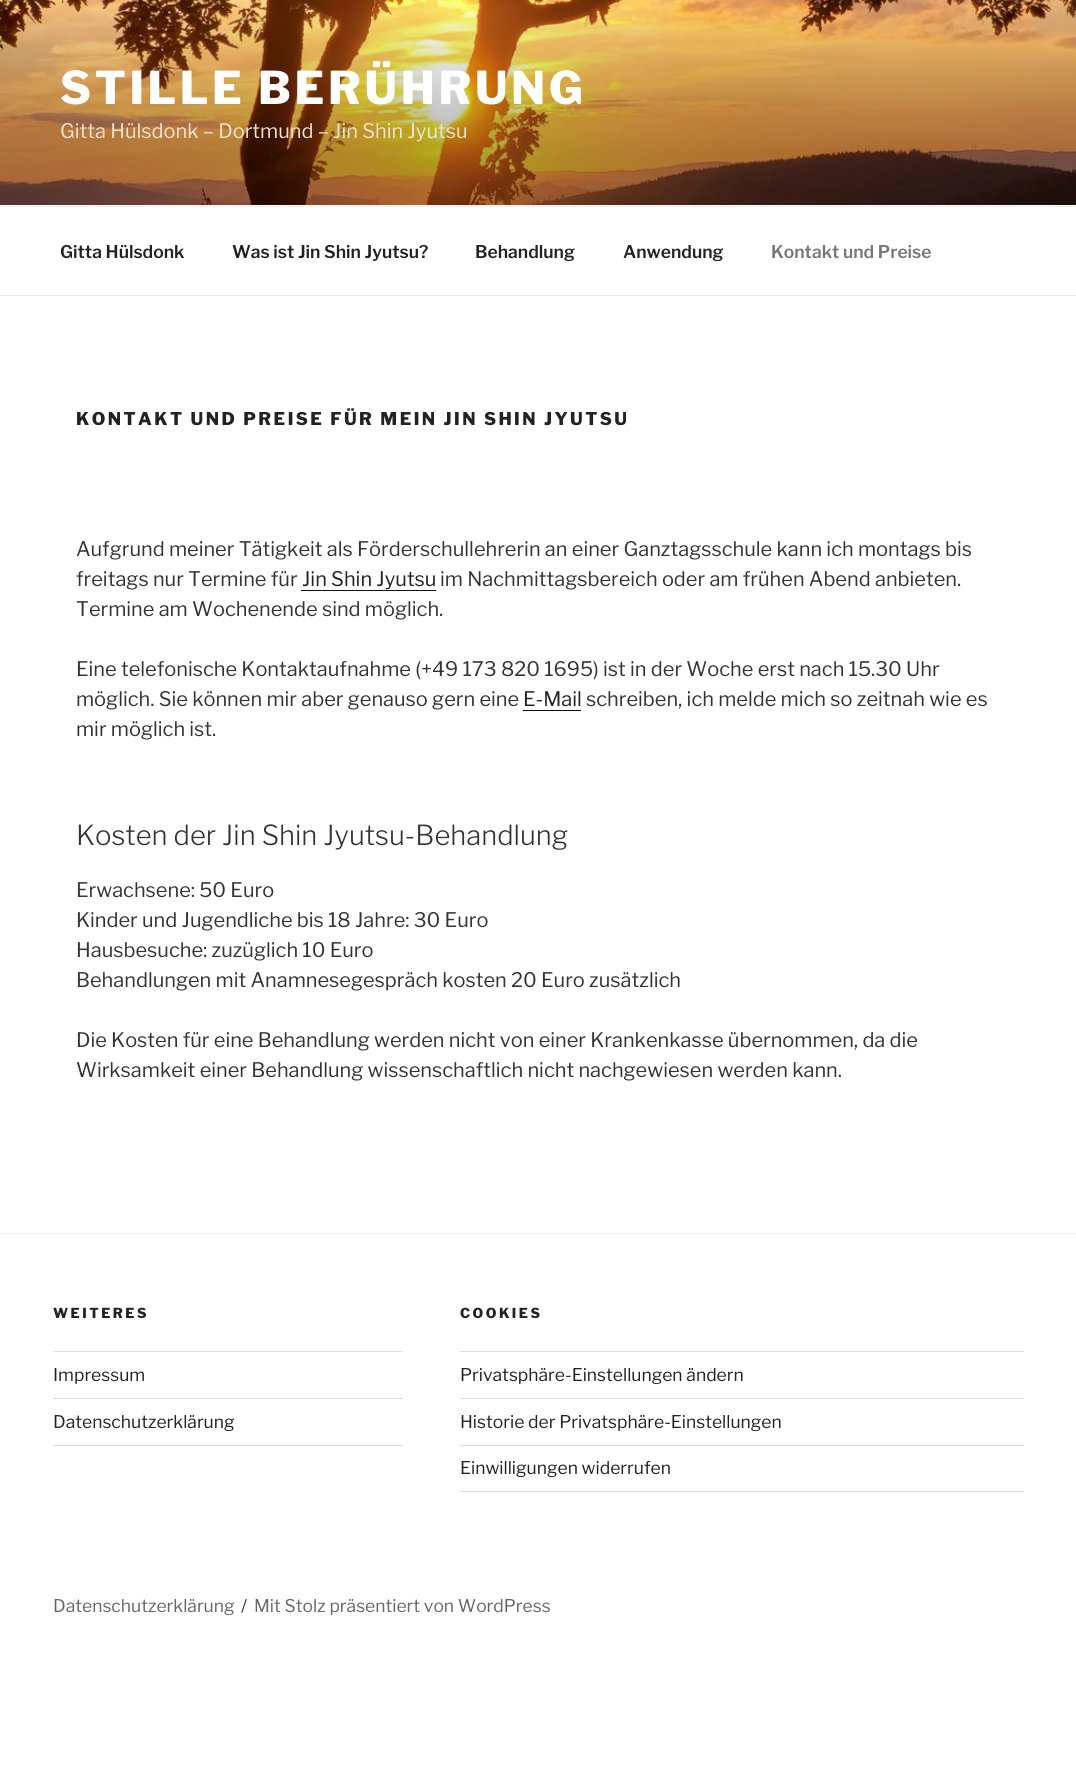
import math
import cairocffi as cairo

surface = cairo.ImageSurface(cairo.FORMAT_RGB24, 1076, 1785)
ctx = cairo.Context(surface)
options = cairo.FontOptions()
options.set_hint_metrics(cairo.HINT_METRICS_OFF)
options.set_hint_style(cairo.HINT_STYLE_NONE)
ctx.set_font_options(options)
ctx.set_miter_limit(4)


def rgb(r, g, b):
    ctx.set_source_rgb(r / 255, g / 255, b / 255)


def face(family, size, italic, bold):
    ctx.select_font_face(family, cairo.FONT_SLANT_ITALIC if italic else cairo.FONT_SLANT_NORMAL, cairo.FONT_WEIGHT_BOLD if bold else cairo.FONT_WEIGHT_NORMAL)
    ctx.set_font_size(size)


def label(x, y, s):
    ctx.move_to(x, y)
    ctx.show_text(s)


def tracked(x, y, s, letter, word):
    ctx.move_to(x, y)
    for ch in s:
        ctx.show_text(ch)
        ctx.rel_move_to(letter + word * (ch == ' '), 0)


def rect(x, y, w, h):
    ctx.rectangle(x, y, w, h)
    ctx.fill()


def image(path, x, y, w, h):
    ctx.save()
    ctx.set_source_surface(cairo.ImageSurface.create_from_png(path), x, y)
    ctx.rectangle(x, y, w, h)
    ctx.fill()
    ctx.restore()


rgb(255, 255, 255)
ctx.paint()
rgb(250, 250, 250)
rect(0, 205, 1076, 1)
image('image0.png', 0, 0, 1076, 205)
face('Libre Franklin Thin', 45, 0, 0)
rgb(255, 255, 255)
tracked(60, 104, 'STILLE BERÜHRUNG', 3.6, 0)
face('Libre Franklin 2 Thin', 20, 0, 0)
rgb(237, 227, 213)
label(60, 138, 'Gitta Hülsdonk – Dortmund – Jin Shin Jyutsu')
rgb(238, 238, 238)
rect(0, 206, 1076, 1)
rect(0, 295, 1076, 1)
face('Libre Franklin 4 Thin', 17.5, 0, 0)
rgb(34, 34, 34)
label(60, 258, 'Gitta Hülsdonk')
label(232, 258, 'Was ist Jin Shin Jyutsu?')
label(475, 258, 'Behandlung')
label(623, 258, 'Anwendung')
rgb(118, 118, 118)
label(771, 258, 'Kontakt und Preise')
face('Libre Franklin Thin', 17.5, 0, 0)
rgb(34, 34, 34)
tracked(76, 425, 'KONTAKT UND PREISE FÜR MEIN JIN SHIN JYUTSU', 2.45, 0)
face('Libre Franklin 2 Thin', 20, 0, 0)
rgb(51, 51, 51)
label(76, 556, 'Aufgrund meiner Tätigkeit als Förderschullehrerin an einer Ganztagsschule kann ich montags bis')
label(76, 586, 'freitags nur Termine für')
rgb(34, 34, 34)
label(302, 586, 'Jin Shin Jyutsu')
rgb(15, 15, 15)
rect(301, 590, 135, 1)
rgb(51, 51, 51)
label(440, 586, 'im Nachmittagsbereich oder am frühen Abend anbieten.')
label(76, 616, 'Termine am Wochenende sind möglich.')
label(76, 676, 'Eine telefonische Kontaktaufnahme (+49 173 820 1695) ist in der Woche erst nach 15.30 Uhr')
label(76, 706, 'möglich. Sie können mir aber genauso gern eine')
rgb(34, 34, 34)
label(523, 706, 'E-Mail')
rgb(15, 15, 15)
rect(523, 710, 58, 1)
rgb(51, 51, 51)
label(586, 706, 'schreiben, ich melde mich so zeitnah wie es')
label(76, 736, 'mir möglich ist.')
face('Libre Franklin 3 Thin', 27.5, 0, 0)
label(76, 845, 'Kosten der Jin Shin Jyutsu-Behandlung')
face('Libre Franklin 2 Thin', 20, 0, 0)
label(76, 897, 'Erwachsene: 50 Euro')
label(76, 927, 'Kinder und Jugendliche bis 18 Jahre: 30 Euro')
label(76, 957, 'Hausbesuche: zuzüglich 10 Euro')
label(76, 987, 'Behandlungen mit Anamnesegespräch kosten 20 Euro zusätzlich')
label(76, 1047, 'Die Kosten für eine Behandlung werden nicht von einer Krankenkasse übernommen, da die')
label(76, 1077, 'Wirksamkeit einer Behandlung wissenschaftlich nicht nachgewiesen werden kann.')
rgb(238, 238, 238)
rect(0, 1233, 1076, 1)
face('Libre Franklin Thin', 13.75, 0, 0)
rgb(34, 34, 34)
tracked(53, 1318, 'WEITERES', 2.5, 0)
rgb(221, 221, 221)
rect(53, 1351, 350, 1)
rect(53, 1398, 350, 1)
face('Libre Franklin 2 Thin', 17.5, 0, 0)
rgb(34, 34, 34)
label(53, 1381, 'Impressum')
rgb(221, 221, 221)
rect(53, 1445, 350, 1)
rgb(34, 34, 34)
label(53, 1428, 'Datenschutzerklärung')
face('Libre Franklin Thin', 13.75, 0, 0)
tracked(460, 1318, 'COOKIES', 2.5, 0)
rgb(221, 221, 221)
rect(460, 1351, 564, 1)
rect(460, 1398, 564, 1)
face('Libre Franklin 2 Thin', 17.5, 0, 0)
rgb(34, 34, 34)
label(460, 1381, 'Privatsphäre-Einstellungen ändern')
rgb(221, 221, 221)
rect(460, 1445, 564, 1)
rgb(34, 34, 34)
label(460, 1428, 'Historie der Privatsphäre-Einstellungen')
rgb(221, 221, 221)
rect(460, 1491, 564, 1)
rgb(34, 34, 34)
label(460, 1474, 'Einwilligungen widerrufen')
rgb(102, 102, 102)
label(53, 1612, 'Datenschutzerklärung')
rgb(51, 51, 51)
label(241, 1612, '/')
rgb(102, 102, 102)
label(254, 1612, 'Mit Stolz präsentiert von WordPress')
surface.write_to_png('render.png')
